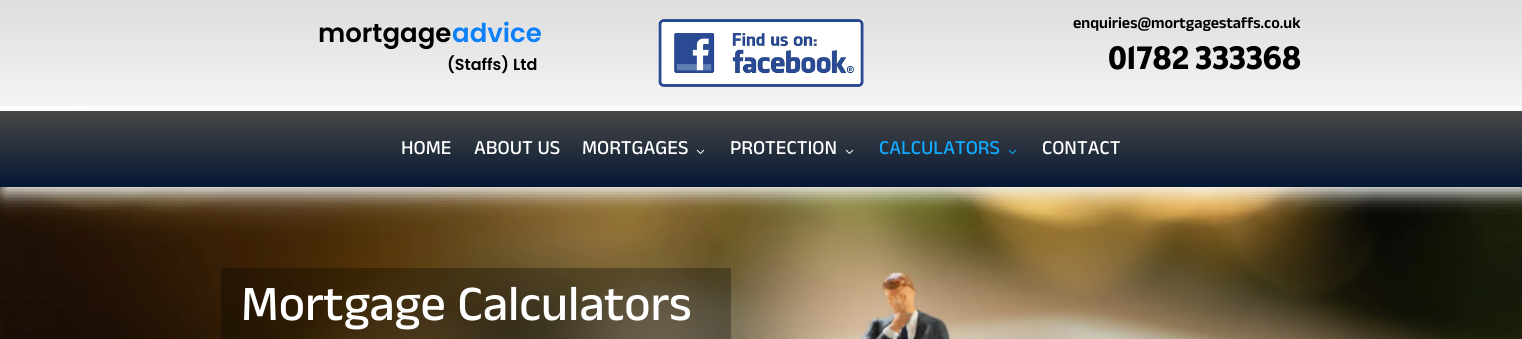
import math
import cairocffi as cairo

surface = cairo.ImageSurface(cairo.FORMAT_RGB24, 1522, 339)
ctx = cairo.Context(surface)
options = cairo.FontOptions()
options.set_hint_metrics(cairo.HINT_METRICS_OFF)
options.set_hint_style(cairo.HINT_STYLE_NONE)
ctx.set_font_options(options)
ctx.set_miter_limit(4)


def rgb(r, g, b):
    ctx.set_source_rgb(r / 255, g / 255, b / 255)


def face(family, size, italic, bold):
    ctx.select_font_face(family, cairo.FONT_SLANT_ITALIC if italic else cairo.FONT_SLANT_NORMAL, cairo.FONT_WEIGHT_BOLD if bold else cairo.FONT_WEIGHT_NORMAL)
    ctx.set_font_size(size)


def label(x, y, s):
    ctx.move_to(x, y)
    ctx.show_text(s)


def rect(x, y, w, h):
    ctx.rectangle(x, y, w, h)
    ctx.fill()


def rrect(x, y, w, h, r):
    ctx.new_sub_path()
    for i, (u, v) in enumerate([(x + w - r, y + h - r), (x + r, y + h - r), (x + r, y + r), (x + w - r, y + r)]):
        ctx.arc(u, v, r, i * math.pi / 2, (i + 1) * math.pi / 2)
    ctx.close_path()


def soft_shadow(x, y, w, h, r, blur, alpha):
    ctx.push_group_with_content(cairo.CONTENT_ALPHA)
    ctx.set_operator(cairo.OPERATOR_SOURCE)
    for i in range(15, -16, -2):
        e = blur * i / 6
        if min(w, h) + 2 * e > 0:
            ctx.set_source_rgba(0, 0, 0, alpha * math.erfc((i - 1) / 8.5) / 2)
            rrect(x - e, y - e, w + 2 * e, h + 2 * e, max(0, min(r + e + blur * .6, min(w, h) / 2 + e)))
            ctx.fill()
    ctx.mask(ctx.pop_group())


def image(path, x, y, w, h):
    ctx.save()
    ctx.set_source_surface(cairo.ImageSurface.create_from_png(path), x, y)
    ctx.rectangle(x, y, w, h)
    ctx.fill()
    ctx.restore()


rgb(255, 255, 255)
ctx.paint()
image('image3.png', 0, 187, 1522, 152)
rgb(0, 0, 0)
soft_shadow(86, 124, 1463, 64, 0, 9, 0.3)
rgb(255, 255, 255)
soft_shadow(3, 117, 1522, 76, 0, 9, 1)
gradient = cairo.LinearGradient(761, 0, 761, 106)
gradient.add_color_stop_rgba(0, 0.867, 0.867, 0.867, 1)
gradient.add_color_stop_rgba(1, 0.957, 0.957, 0.957, 1)
ctx.set_source(gradient)
rect(0, 0, 1522, 106)
face('Poppins SemiBold', 26, 0, 0)
rgb(0, 0, 0)
label(318, 42, 'mortgage')
rgb(14, 128, 249)
label(452, 42, 'advice')
face('Poppins SemiBold', 16, 0, 0)
rgb(0, 0, 0)
label(447, 70, '(Staffs) Ltd')
image('image0.png', 658, 19, 206, 68)
face('Anek Telugu SemiBold', 16, 0, 0)
label(1073, 28, 'enquiries@mortgagestaffs.co.uk')
face('Alatsi', 31, 0, 1)
label(1108, 69, '01782 333368')
gradient = cairo.LinearGradient(761, 111, 761, 187)
gradient.add_color_stop_rgba(0.01, 0.278, 0.278, 0.278, 1)
gradient.add_color_stop_rgba(0.99, 0.02, 0.094, 0.2, 1)
ctx.set_source(gradient)
rect(0, 111, 1522, 76)
face('Anek Telugu Medium', 20, 0, 0)
rgb(255, 255, 255)
label(401, 154, 'HOME')
label(474, 154, 'ABOUT US')
label(582, 154, 'MORTGAGES')
image('image1.png', 696, 149, 9, 5)
label(730, 154, 'PROTECTION')
image('image1.png', 845, 149, 9, 5)
rgb(15, 171, 255)
label(879, 154, 'CALCULATORS')
image('image2.png', 1008, 149, 9, 5)
rgb(255, 255, 255)
label(1042, 154, 'CONTACT')
ctx.set_source_rgba(0, 0, 0, 0.29)
rect(221, 268, 510, 71)
face('Anek Telugu Medium', 50, 0, 0)
rgb(255, 255, 255)
label(241, 320, 'Mortgage Calculators')
surface.write_to_png('render.png')
